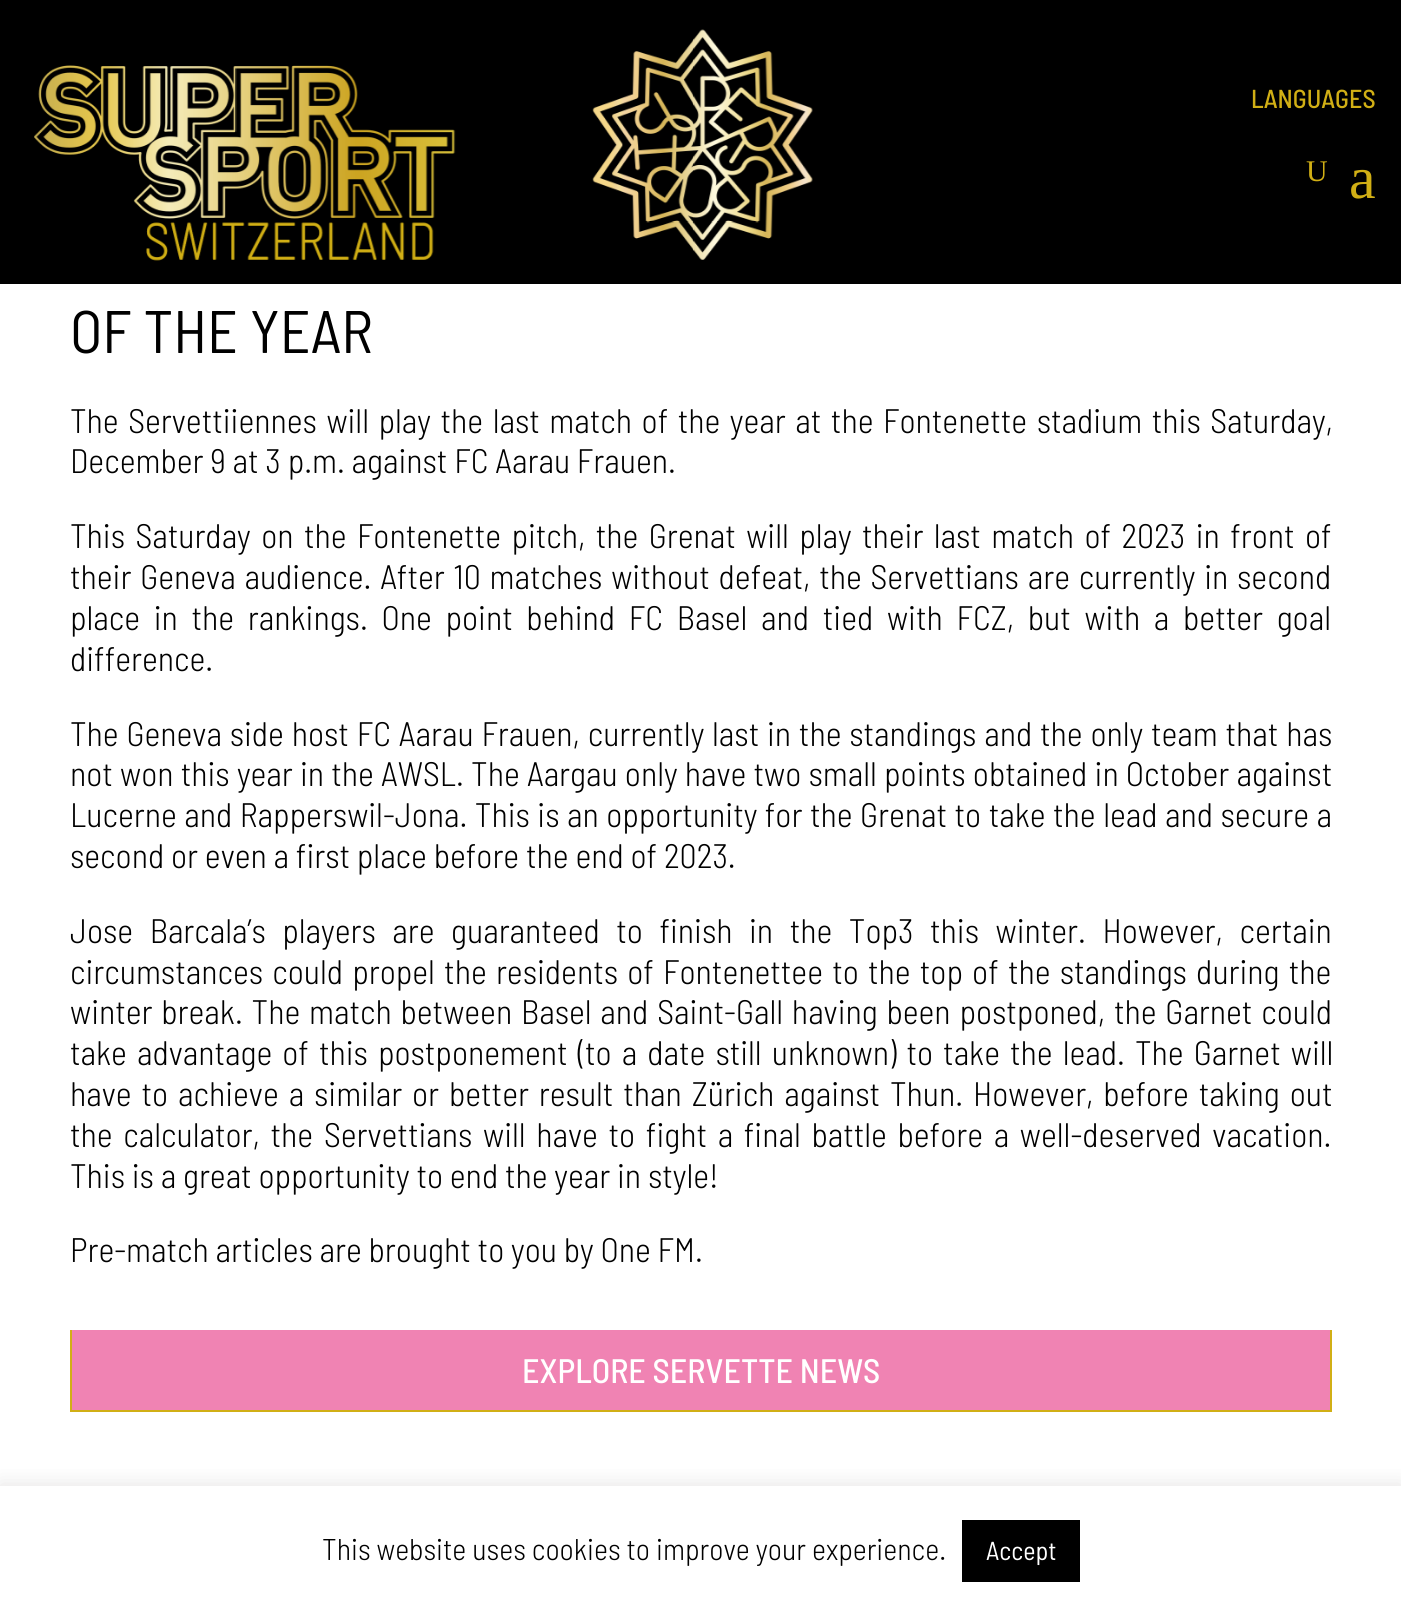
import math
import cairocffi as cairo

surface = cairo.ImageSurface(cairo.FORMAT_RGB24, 1401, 1605)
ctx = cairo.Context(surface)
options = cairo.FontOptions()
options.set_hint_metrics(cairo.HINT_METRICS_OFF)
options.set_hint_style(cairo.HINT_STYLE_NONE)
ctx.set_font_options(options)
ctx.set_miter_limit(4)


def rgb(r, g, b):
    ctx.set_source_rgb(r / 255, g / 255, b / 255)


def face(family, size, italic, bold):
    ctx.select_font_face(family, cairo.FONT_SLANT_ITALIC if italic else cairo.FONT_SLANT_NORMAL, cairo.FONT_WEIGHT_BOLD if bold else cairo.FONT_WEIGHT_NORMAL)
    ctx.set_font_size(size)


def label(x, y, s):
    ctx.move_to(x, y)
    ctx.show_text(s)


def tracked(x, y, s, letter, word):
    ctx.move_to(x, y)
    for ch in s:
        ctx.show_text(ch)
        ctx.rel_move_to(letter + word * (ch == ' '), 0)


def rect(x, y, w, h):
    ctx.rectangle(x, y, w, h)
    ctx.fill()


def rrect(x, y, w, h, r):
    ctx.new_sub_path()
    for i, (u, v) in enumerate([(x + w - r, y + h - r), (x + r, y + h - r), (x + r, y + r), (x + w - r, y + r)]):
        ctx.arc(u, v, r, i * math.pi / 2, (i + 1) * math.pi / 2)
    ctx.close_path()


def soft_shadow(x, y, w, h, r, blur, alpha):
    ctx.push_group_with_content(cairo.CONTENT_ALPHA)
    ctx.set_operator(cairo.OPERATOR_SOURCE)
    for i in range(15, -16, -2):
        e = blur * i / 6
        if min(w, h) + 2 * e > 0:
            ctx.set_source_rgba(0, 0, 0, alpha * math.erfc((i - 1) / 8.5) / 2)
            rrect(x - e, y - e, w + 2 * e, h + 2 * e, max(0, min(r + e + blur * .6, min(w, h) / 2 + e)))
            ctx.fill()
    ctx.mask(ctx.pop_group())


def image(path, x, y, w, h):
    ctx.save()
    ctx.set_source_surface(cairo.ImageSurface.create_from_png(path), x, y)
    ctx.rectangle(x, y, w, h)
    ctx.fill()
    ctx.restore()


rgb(255, 255, 255)
ctx.paint()
rgb(0, 0, 0)
rect(0, 0, 1401, 284)
image('image0.png', 34, 65, 422, 196)
image('image1.png', 592, 29, 221, 231)
face('Barlow Semi Condensed Medium', 26, 0, 0)
rgb(209, 175, 21)
label(1251, 108, 'LANGUAGES')
face('Liberation Serif', 30, 0, 0)
label(1306, 181, 'U')
face('Liberation Serif', 60, 0, 0)
label(1349, 198, 'a')
face('Barlow Semi Condensed', 60, 0, 0)
rgb(0, 0, 0)
label(70, 353, 'OF THE YEAR')
face('Barlow Semi Condensed Light', 34, 0, 0)
tracked(70, 433, 'The Servettiiennes will play the last match of the year at the Fontenette stadium this Saturday,', 0, 2.75)
label(70, 473, 'December 9 at 3 p.m. against FC Aarau Frauen.')
tracked(70, 548, 'This Saturday on the Fontenette pitch, the Grenat will play their last match of 2023 in front of', 0, 3.6)
tracked(70, 589, 'their Geneva audience. After 10 matches without defeat, the Servettians are currently in second', 0, 2)
tracked(70, 630, 'place in the rankings. One point behind FC Basel and tied with FCZ, but with a better goal', 0, 6.9)
label(70, 671, 'difference.')
tracked(70, 746, 'The Geneva side host FC Aarau Frauen, currently last in the standings and the only team that has', 0, 1)
tracked(70, 786, 'not won this year in the AWSL. The Aargau only have two small points obtained in October against', 0, 0.4)
tracked(70, 827, 'Lucerne and Rapperswil-Jona. This is an opportunity for the Grenat to take the lead and secure a', 0, 0.7)
label(70, 868, 'second or even a first place before the end of 2023.')
tracked(70, 943, 'Jose Barcala’s players are guaranteed to finish in the Top3 this winter. However, certain', 0, 9.75)
tracked(70, 984, 'circumstances could propel the residents of Fontenettee to the top of the standings during the', 0, 2.4)
tracked(70, 1024, 'winter break. The match between Basel and Saint-Gall having been postponed, the Garnet could', 0, 2)
tracked(70, 1065, 'take advantage of this postponement (to a date still unknown) to take the lead. The Garnet will', 0, 3.25)
tracked(70, 1106, 'have to achieve a similar or better result than Zürich against Thun. However, before taking out', 0, 3.1)
tracked(70, 1147, 'the calculator, the Servettians will have to fight a final battle before a well-deserved vacation.', 0, 3.9)
label(70, 1188, 'This is a great opportunity to end the year in style!')
label(70, 1262, 'Pre-match articles are brought to you by One FM.')
rgb(240, 131, 179)
rect(72, 1330, 1258, 80)
rgb(209, 175, 21)
rect(1330, 1330, 2, 82)
rect(70, 1410, 1262, 2)
rect(70, 1330, 2, 82)
face('Barlow Semi Condensed Medium', 34, 0, 0)
rgb(255, 255, 255)
label(522, 1383, 'EXPLORE SERVETTE NEWS')
ctx.save()
ctx.rectangle(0, 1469, 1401, 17)
ctx.clip()
rgb(172, 171, 171)
soft_shadow(0, 1484, 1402, 120, 0, 10, 0.3)
ctx.restore()
face('Barlow Semi Condensed Light', 30, 0, 0)
rgb(0, 0, 0)
label(322, 1560, 'This website uses cookies to improve your experience.')
rect(962, 1520, 118, 62)
face('Barlow Semi Condensed', 26, 0, 0)
rgb(255, 255, 255)
label(986, 1560, 'Accept')
surface.write_to_png('render.png')
